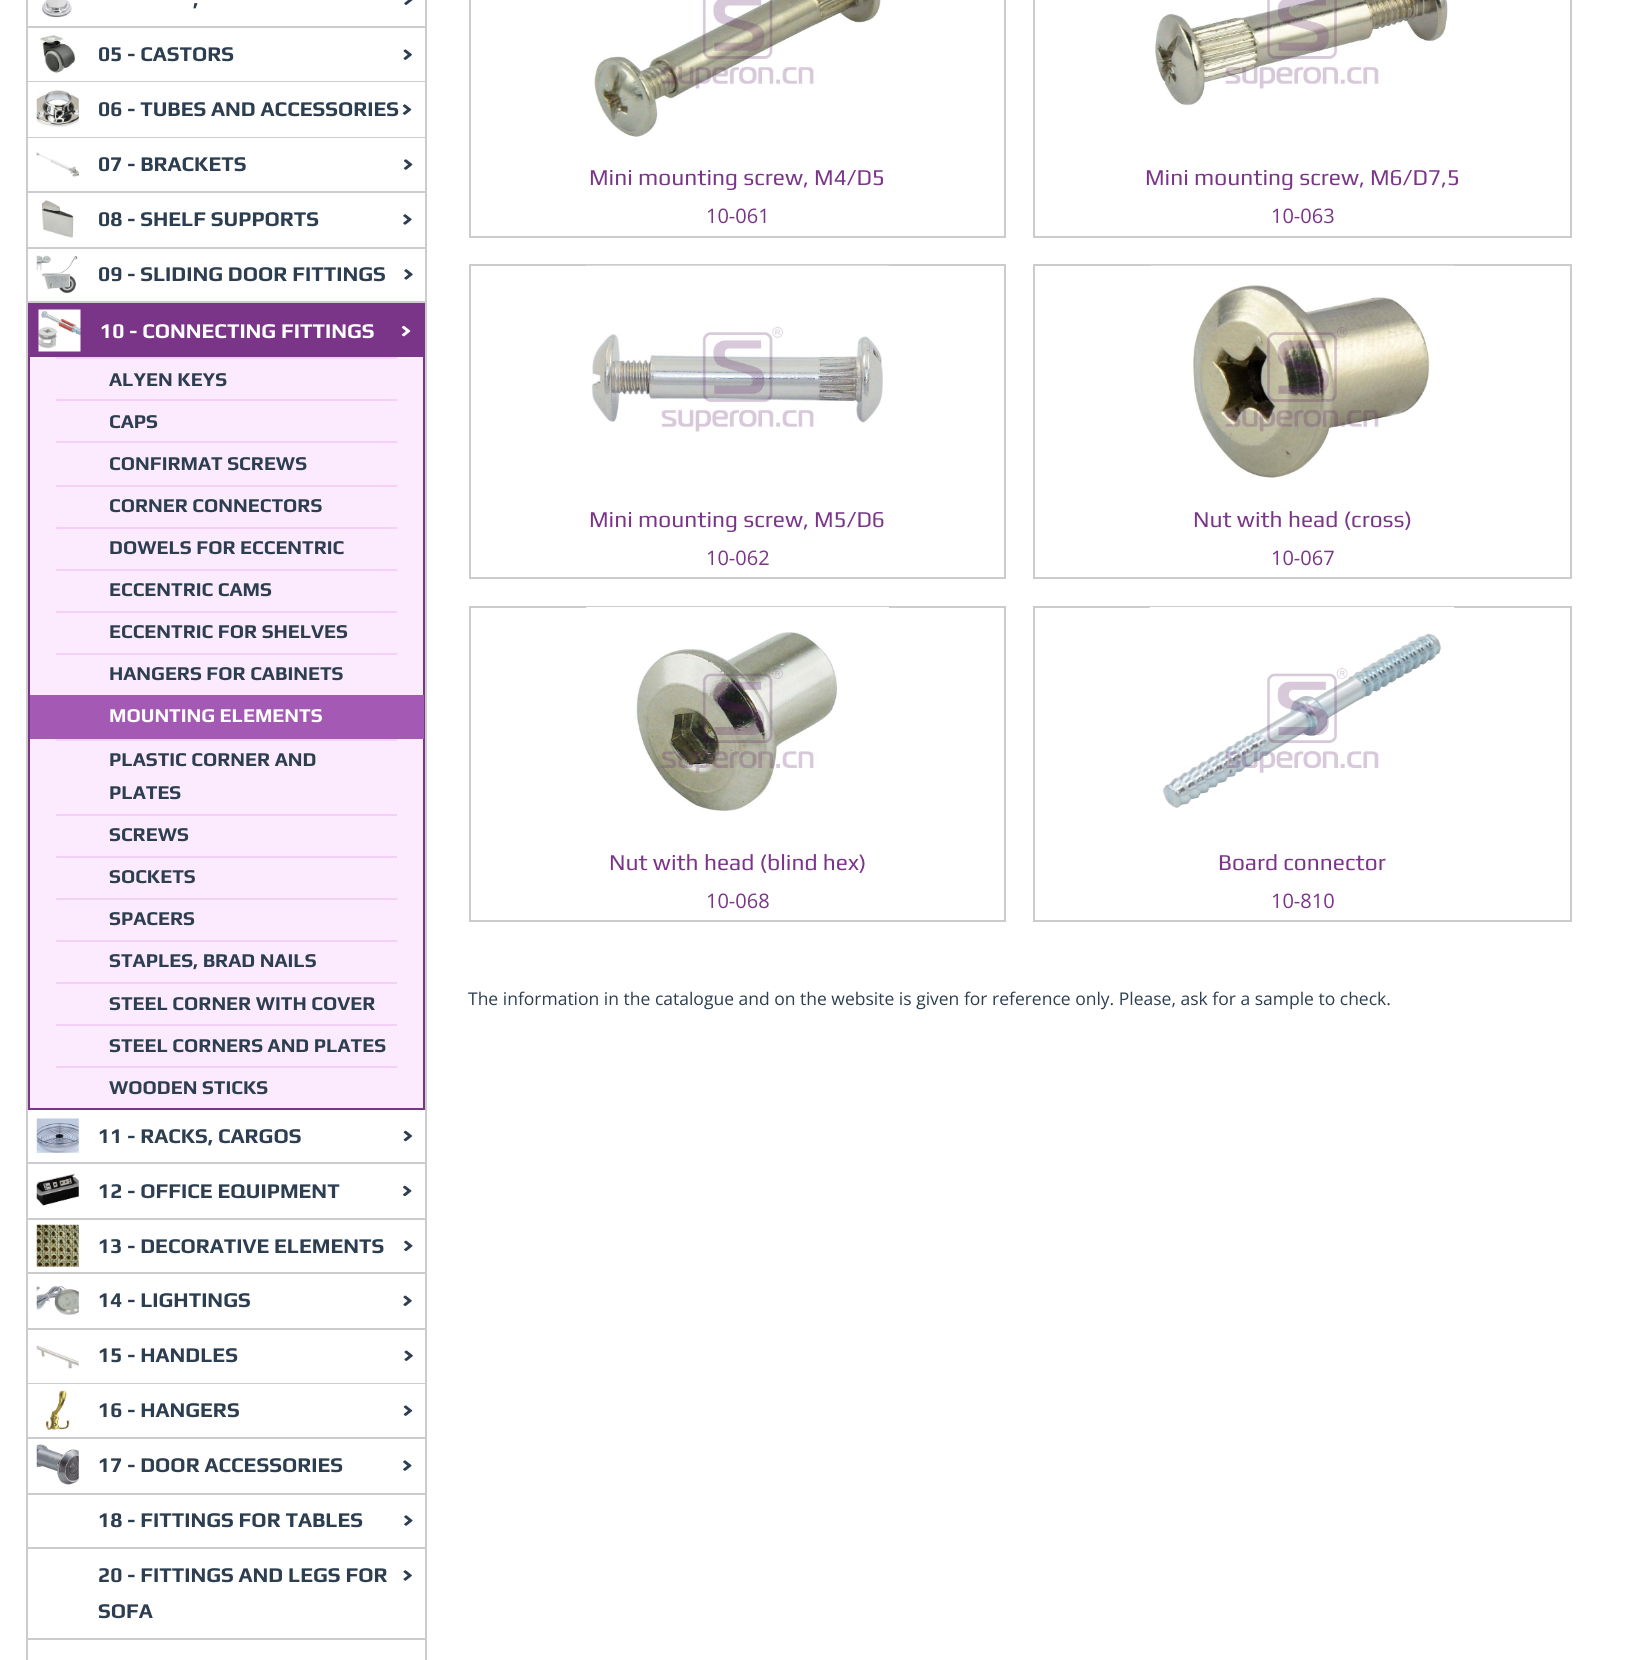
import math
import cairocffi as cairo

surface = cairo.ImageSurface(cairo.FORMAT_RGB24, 1633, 1660)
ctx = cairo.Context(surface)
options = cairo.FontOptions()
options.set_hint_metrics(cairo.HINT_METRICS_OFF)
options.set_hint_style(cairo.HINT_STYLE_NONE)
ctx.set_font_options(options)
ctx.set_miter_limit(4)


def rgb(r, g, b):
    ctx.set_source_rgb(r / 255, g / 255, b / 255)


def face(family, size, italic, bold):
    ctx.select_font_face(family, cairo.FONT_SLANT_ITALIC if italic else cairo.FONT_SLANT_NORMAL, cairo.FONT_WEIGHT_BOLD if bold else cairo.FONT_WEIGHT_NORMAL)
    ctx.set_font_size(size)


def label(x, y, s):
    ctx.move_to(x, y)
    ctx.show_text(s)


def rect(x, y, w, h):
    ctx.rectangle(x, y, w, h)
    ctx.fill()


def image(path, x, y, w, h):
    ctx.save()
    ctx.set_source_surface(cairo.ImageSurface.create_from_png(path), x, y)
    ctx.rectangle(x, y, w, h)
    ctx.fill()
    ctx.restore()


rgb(255, 255, 255)
ctx.paint()
rgb(204, 204, 204)
rect(425, 0, 2, 1660)
rect(26, 0, 2, 1660)
rect(28, 26, 397, 2)
image('image0.png', 42, 0, 30, 18)
image('image1.png', 404, 0, 9, 5)
face('Play', 21, 0, 1)
rgb(44, 62, 80)
label(193, 6, ',')
rgb(204, 204, 204)
rect(28, 81, 397, 1)
image('image2.png', 40, 35, 36, 38)
rgb(44, 62, 80)
label(98, 61, '05 - CASTORS')
image('image3.png', 403, 49, 9, 11)
rgb(204, 204, 204)
rect(28, 137, 397, 1)
image('image4.png', 36, 90, 43, 37)
rgb(44, 62, 80)
label(98, 116, '06 - TUBES AND ACCESSORIES')
image('image5.png', 402, 104, 10, 11)
rgb(204, 204, 204)
rect(28, 191, 397, 2)
image('image6.png', 36, 152, 43, 25)
rgb(44, 62, 80)
label(98, 171, '07 - BRACKETS')
image('image7.png', 403, 159, 10, 11)
rgb(204, 204, 204)
rect(28, 247, 397, 2)
image('image8.png', 41, 200, 33, 38)
rgb(44, 62, 80)
label(98, 226, '08 - SHELF SUPPORTS')
image('image9.png', 403, 214, 9, 11)
rgb(204, 204, 204)
rect(28, 301, 397, 2)
image('image10.png', 36, 255, 42, 39)
rgb(44, 62, 80)
label(98, 281, '09 - SLIDING DOOR FITTINGS')
image('image11.png', 404, 269, 9, 11)
rgb(252, 234, 255)
rect(30, 357, 393, 751)
ctx.rectangle(29, 304, 395, 805)
rgb(122, 53, 136)
ctx.stroke()
rect(30, 305, 393, 52)
image('image12.png', 38, 309, 43, 43)
rgb(255, 255, 255)
label(100, 338, '10 - CONNECTING FITTINGS')
image('image13.png', 401, 325, 10, 12)
rgb(243, 207, 249)
rect(56, 357, 341, 2)
face('Play', 19.6, 0, 1)
rgb(44, 62, 80)
label(109, 386, 'ALYEN KEYS')
rgb(243, 207, 249)
rect(56, 399, 341, 2)
rgb(44, 62, 80)
label(109, 428, 'CAPS')
rgb(243, 207, 249)
rect(56, 441, 341, 2)
rgb(44, 62, 80)
label(109, 470, 'CONFIRMAT SCREWS')
rgb(243, 207, 249)
rect(56, 485, 341, 2)
rgb(44, 62, 80)
label(109, 512, 'CORNER CONNECTORS')
rgb(243, 207, 249)
rect(56, 527, 341, 2)
rgb(44, 62, 80)
label(109, 554, 'DOWELS FOR ECCENTRIC')
rgb(243, 207, 249)
rect(56, 569, 341, 2)
rgb(44, 62, 80)
label(109, 596, 'ECCENTRIC CAMS')
rgb(243, 207, 249)
rect(56, 611, 341, 2)
rgb(44, 62, 80)
label(109, 638, 'ECCENTRIC FOR SHELVES')
rgb(243, 207, 249)
rect(56, 653, 341, 2)
rgb(44, 62, 80)
label(109, 680, 'HANGERS FOR CABINETS')
rgb(164, 90, 180)
rect(30, 695, 394, 44)
rgb(255, 255, 255)
label(109, 722, 'MOUNTING ELEMENTS')
rgb(243, 207, 249)
rect(56, 739, 341, 2)
rgb(44, 62, 80)
label(109, 766, 'PLASTIC CORNER AND')
label(109, 799, 'PLATES')
rgb(243, 207, 249)
rect(56, 814, 341, 2)
rgb(44, 62, 80)
label(109, 841, 'SCREWS')
rgb(243, 207, 249)
rect(56, 856, 341, 2)
rgb(44, 62, 80)
label(109, 883, 'SOCKETS')
rgb(243, 207, 249)
rect(56, 898, 341, 2)
rgb(44, 62, 80)
label(109, 925, 'SPACERS')
rgb(243, 207, 249)
rect(56, 940, 341, 2)
rgb(44, 62, 80)
label(109, 967, 'STAPLES, BRAD NAILS')
rgb(243, 207, 249)
rect(56, 982, 341, 2)
rgb(44, 62, 80)
label(109, 1010, 'STEEL CORNER WITH COVER')
rgb(243, 207, 249)
rect(56, 1024, 341, 2)
rgb(44, 62, 80)
label(109, 1052, 'STEEL CORNERS AND PLATES')
rgb(243, 207, 249)
rect(56, 1066, 341, 2)
rgb(44, 62, 80)
label(109, 1094, 'WOODEN STICKS')
rgb(204, 204, 204)
rect(28, 1162, 397, 2)
image('image14.png', 36, 1118, 43, 35)
face('Play', 21, 0, 1)
rgb(44, 62, 80)
label(98, 1143, '11 - RACKS, CARGOS')
image('image15.png', 403, 1130, 10, 12)
rgb(204, 204, 204)
rect(28, 1218, 397, 2)
image('image16.png', 36, 1173, 43, 33)
rgb(44, 62, 80)
label(98, 1198, '12 - OFFICE EQUIPMENT')
image('image17.png', 403, 1185, 9, 12)
rgb(204, 204, 204)
rect(28, 1272, 397, 2)
image('image18.png', 36, 1224, 43, 43)
rgb(44, 62, 80)
label(98, 1253, '13 - DECORATIVE ELEMENTS')
image('image19.png', 404, 1240, 9, 12)
rgb(204, 204, 204)
rect(28, 1328, 397, 2)
image('image20.png', 36, 1285, 43, 30)
rgb(44, 62, 80)
label(98, 1307, '14 - LIGHTINGS')
image('image21.png', 403, 1295, 9, 11)
rgb(204, 204, 204)
rect(28, 1383, 397, 1)
image('image22.png', 36, 1345, 43, 24)
rgb(44, 62, 80)
label(98, 1362, '15 - HANDLES')
image('image23.png', 404, 1350, 9, 11)
rgb(204, 204, 204)
rect(28, 1437, 397, 2)
image('image24.png', 45, 1390, 25, 41)
rgb(44, 62, 80)
label(98, 1417, '16 - HANGERS')
image('image25.png', 403, 1405, 10, 11)
rgb(204, 204, 204)
rect(28, 1493, 397, 2)
image('image26.png', 36, 1444, 43, 41)
rgb(44, 62, 80)
label(98, 1472, '17 - DOOR ACCESSORIES')
image('image27.png', 403, 1460, 9, 11)
rgb(204, 204, 204)
rect(28, 1547, 397, 2)
rgb(44, 62, 80)
label(98, 1527, '18 - FITTINGS FOR TABLES')
image('image28.png', 404, 1515, 9, 11)
rgb(204, 204, 204)
rect(28, 1638, 397, 2)
rgb(44, 62, 80)
label(98, 1582, '20 - FITTINGS AND LEGS FOR')
image('image29.png', 403, 1570, 9, 11)
label(98, 1618, 'SOFA')
ctx.rectangle(470, -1, 535, 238)
rgb(204, 204, 204)
ctx.stroke()
image('image30.png', 592, 0, 289, 138)
face('Play', 22.75, 0, 0)
rgb(122, 53, 136)
label(589, 185, 'Mini mounting screw, M4/D5')
face('Open Sans', 20, 0, 0)
label(706, 223, '10-061')
ctx.rectangle(1034, -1, 537, 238)
rgb(204, 204, 204)
ctx.stroke()
image('image31.png', 1155, 0, 293, 106)
face('Play', 22.75, 0, 0)
rgb(122, 53, 136)
label(1145, 185, 'Mini mounting screw, М6/D7,5')
face('Open Sans', 20, 0, 0)
label(1271, 223, '10-063')
ctx.rectangle(470, 265, 535, 313)
rgb(204, 204, 204)
ctx.stroke()
image('image32.png', 586, 265, 303, 167)
face('Play', 22.75, 0, 0)
rgb(122, 53, 136)
label(589, 527, 'Mini mounting screw, M5/D6')
face('Open Sans', 20, 0, 0)
label(706, 565, '10-062')
ctx.rectangle(1034, 265, 537, 313)
rgb(204, 204, 204)
ctx.stroke()
image('image33.png', 1150, 265, 304, 213)
face('Play', 22.75, 0, 0)
rgb(122, 53, 136)
label(1193, 527, 'Nut with head (cross)')
face('Open Sans', 20, 0, 0)
label(1271, 565, '10-067')
ctx.rectangle(470, 607, 535, 314)
rgb(204, 204, 204)
ctx.stroke()
image('image34.png', 586, 607, 303, 204)
face('Play', 22.75, 0, 0)
rgb(122, 53, 136)
label(609, 870, 'Nut with head (blind hex)')
face('Open Sans', 20, 0, 0)
label(706, 908, '10-068')
ctx.rectangle(1034, 607, 537, 314)
rgb(204, 204, 204)
ctx.stroke()
image('image35.png', 1149, 607, 306, 202)
face('Play', 22.75, 0, 0)
rgb(122, 53, 136)
label(1218, 870, 'Board connector')
face('Open Sans', 20, 0, 0)
label(1271, 908, '10-810')
face('Open Sans', 17.5, 0, 0)
rgb(44, 62, 80)
label(468, 1005, 'The information in the catalogue and on the website is given for reference only. Please, ask for a sample to check.')
surface.write_to_png('render.png')
